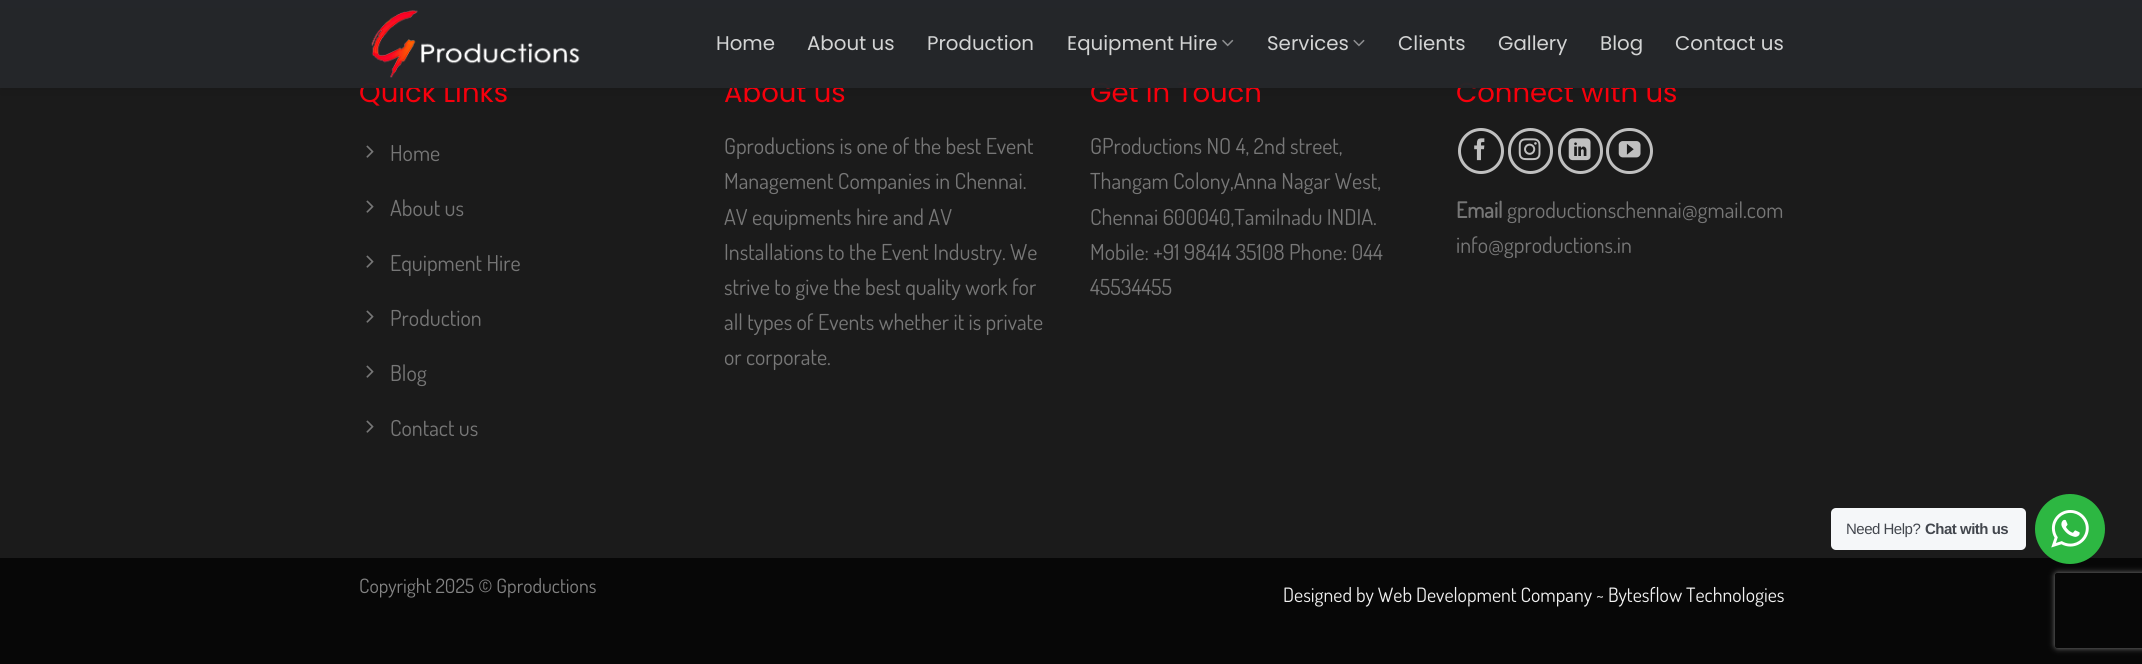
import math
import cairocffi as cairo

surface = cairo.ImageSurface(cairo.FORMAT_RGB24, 2142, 664)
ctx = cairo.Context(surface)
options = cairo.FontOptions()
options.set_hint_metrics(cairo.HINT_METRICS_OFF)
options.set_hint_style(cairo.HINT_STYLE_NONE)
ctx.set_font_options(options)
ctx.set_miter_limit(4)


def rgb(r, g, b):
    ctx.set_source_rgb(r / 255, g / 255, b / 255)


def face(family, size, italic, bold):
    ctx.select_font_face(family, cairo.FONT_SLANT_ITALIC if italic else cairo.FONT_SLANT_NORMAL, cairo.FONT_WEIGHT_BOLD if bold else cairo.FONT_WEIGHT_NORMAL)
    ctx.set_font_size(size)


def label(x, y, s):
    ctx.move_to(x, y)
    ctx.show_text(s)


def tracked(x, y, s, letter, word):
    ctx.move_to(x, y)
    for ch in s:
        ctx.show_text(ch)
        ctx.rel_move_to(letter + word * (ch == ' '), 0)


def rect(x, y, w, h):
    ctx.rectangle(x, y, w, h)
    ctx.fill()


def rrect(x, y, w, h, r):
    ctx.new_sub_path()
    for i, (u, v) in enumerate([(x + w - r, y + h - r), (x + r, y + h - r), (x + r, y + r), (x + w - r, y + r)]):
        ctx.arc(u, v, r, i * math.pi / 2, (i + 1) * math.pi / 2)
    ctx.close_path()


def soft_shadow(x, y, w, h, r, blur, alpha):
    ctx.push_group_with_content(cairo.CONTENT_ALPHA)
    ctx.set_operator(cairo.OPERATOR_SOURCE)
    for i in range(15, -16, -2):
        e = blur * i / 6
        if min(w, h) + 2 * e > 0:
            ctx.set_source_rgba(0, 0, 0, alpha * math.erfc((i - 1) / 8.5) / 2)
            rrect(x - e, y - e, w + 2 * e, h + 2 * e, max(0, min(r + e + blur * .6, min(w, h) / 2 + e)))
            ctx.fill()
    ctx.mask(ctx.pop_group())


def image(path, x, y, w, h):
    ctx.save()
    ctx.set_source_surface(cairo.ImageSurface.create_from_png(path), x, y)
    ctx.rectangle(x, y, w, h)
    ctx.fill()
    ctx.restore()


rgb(36, 38, 42)
ctx.paint()
rgb(27, 27, 27)
rect(0, 8, 2142, 550)
ctx.save()
ctx.set_fill_rule(cairo.FILL_RULE_EVEN_ODD)
ctx.new_path()
ctx.move_to(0, 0)
ctx.line_to(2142, 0)
ctx.line_to(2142, 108)
ctx.line_to(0, 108)
ctx.close_path()
ctx.move_to(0, 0)
ctx.line_to(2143, 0)
ctx.line_to(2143, 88)
ctx.line_to(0, 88)
ctx.close_path()
ctx.clip()
rgb(0, 0, 0)
soft_shadow(1, 1, 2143, 88, 0, 6, 0.15)
ctx.restore()
face('Poppins', 27.5, 0, 0)
rgb(246, 0, 12)
label(359, 102, 'Quick Links')
label(724, 102, 'About us')
label(1090, 102, 'Get in Touch')
label(1456, 102, 'Connect with us')
ctx.set_source_rgba(0.141, 0.149, 0.165, 0.97)
rect(0, 8, 2142, 80)
image('image0.png', 371, 10, 209, 68)
face('Poppins', 19.8, 0, 0)
rgb(211, 212, 212)
label(716, 50, 'Home')
label(807, 50, 'About us')
label(927, 50, 'Production')
label(1067, 50, 'Equipment Hire')
image('image1.png', 1222, 39, 12, 8)
label(1267, 50, 'Services')
image('image2.png', 1353, 39, 12, 8)
label(1398, 50, 'Clients')
label(1498, 50, 'Gallery')
label(1600, 50, 'Blog')
label(1675, 50, 'Contact us')
image('image3.png', 366, 145, 8, 13)
face('Dosis', 22, 0, 0)
rgb(119, 119, 119)
label(390, 161, 'Home')
image('image3.png', 366, 200, 8, 13)
label(390, 216, 'About us')
image('image3.png', 366, 255, 8, 13)
label(390, 271, 'Equipment Hire')
image('image3.png', 366, 310, 8, 13)
label(390, 326, 'Production')
image('image3.png', 366, 365, 8, 13)
label(390, 381, 'Blog')
image('image3.png', 366, 420, 8, 13)
label(390, 436, 'Contact us')
label(724, 154, 'Gproductions is one of the best Event')
label(724, 189, 'Management Companies in Chennai.')
label(724, 225, 'AV equipments hire and AV')
label(724, 260, 'Installations to the Event Industry. We')
label(724, 295, 'strive to give the best quality work for')
label(724, 330, 'all types of Events whether it is private')
label(724, 365, 'or corporate.')
label(1090, 154, 'GProductions NO 4, 2nd street,')
label(1090, 189, 'Thangam Colony,Anna Nagar West,')
label(1090, 225, 'Chennai 600040,Tamilnadu INDIA.')
label(1090, 260, 'Mobile: +91 98414 35108 Phone: 044')
label(1090, 295, '45534455')
ctx.new_path()
ctx.arc(1481, 151, 21.5, 0, 2 * math.pi)
rgb(192, 192, 192)
ctx.set_line_width(3)
ctx.stroke()
image('image4.png', 1474, 138, 11, 23)
rrect(1509.5, 129.5, 42, 43, 21)
ctx.stroke()
image('image5.png', 1518, 138, 23, 23)
rrect(1559.5, 129.5, 42, 43, 21)
ctx.stroke()
image('image6.png', 1568, 138, 23, 23)
rrect(1607.5, 129.5, 44, 43, 21.5)
ctx.stroke()
image('image7.png', 1618, 141, 23, 17)
face('Dosis', 22, 0, 1)
rgb(119, 119, 119)
label(1456, 218, 'Email')
face('Dosis', 22, 0, 0)
label(1507, 218, 'gproductionschennai@gmail.com')
label(1456, 253, 'info@gproductions.in')
rgb(7, 7, 7)
rect(0, 558, 2142, 106)
face('Dosis', 19.8, 0, 0)
rgb(131, 131, 131)
label(359, 593, 'Copyright 2025 © Gproductions')
rgb(241, 241, 241)
label(1283, 602, 'Designed by Web Development Company ~ Bytesflow Technologies')
rgb(245, 247, 249)
rrect(1831, 508, 195, 42, 5)
ctx.fill()
face('Liberation Sans', 15, 0, 0)
rgb(67, 71, 78)
tracked(1846, 534, 'Need Help?', -0.5, 0)
face('Liberation Sans', 15, 0, 1)
tracked(1925, 534, 'Chat with us', -0.5, 0)
ctx.save()
ctx.set_fill_rule(cairo.FILL_RULE_EVEN_ODD)
ctx.new_path()
ctx.move_to(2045, 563)
ctx.line_to(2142, 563)
ctx.line_to(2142, 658)
ctx.line_to(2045, 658)
ctx.close_path()
ctx.move_to(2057.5, 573)
ctx.line_to(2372.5, 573)
ctx.curve_to(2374, 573, 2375, 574, 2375, 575.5)
ctx.line_to(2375, 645.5)
ctx.curve_to(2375, 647, 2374, 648, 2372.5, 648)
ctx.line_to(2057.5, 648)
ctx.curve_to(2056, 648, 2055, 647, 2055, 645.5)
ctx.line_to(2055, 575.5)
ctx.curve_to(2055, 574, 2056, 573, 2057.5, 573)
ctx.close_path()
ctx.clip()
rgb(128, 128, 128)
soft_shadow(2055, 573, 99, 75, 2.5, 3, 1)
ctx.restore()
rgb(45, 183, 66)
ctx.arc(2070, 529, 35, 0, 2 * math.pi)
ctx.fill()
image('image8.png', 2051, 510, 38, 38)
surface.write_to_png('render.png')
